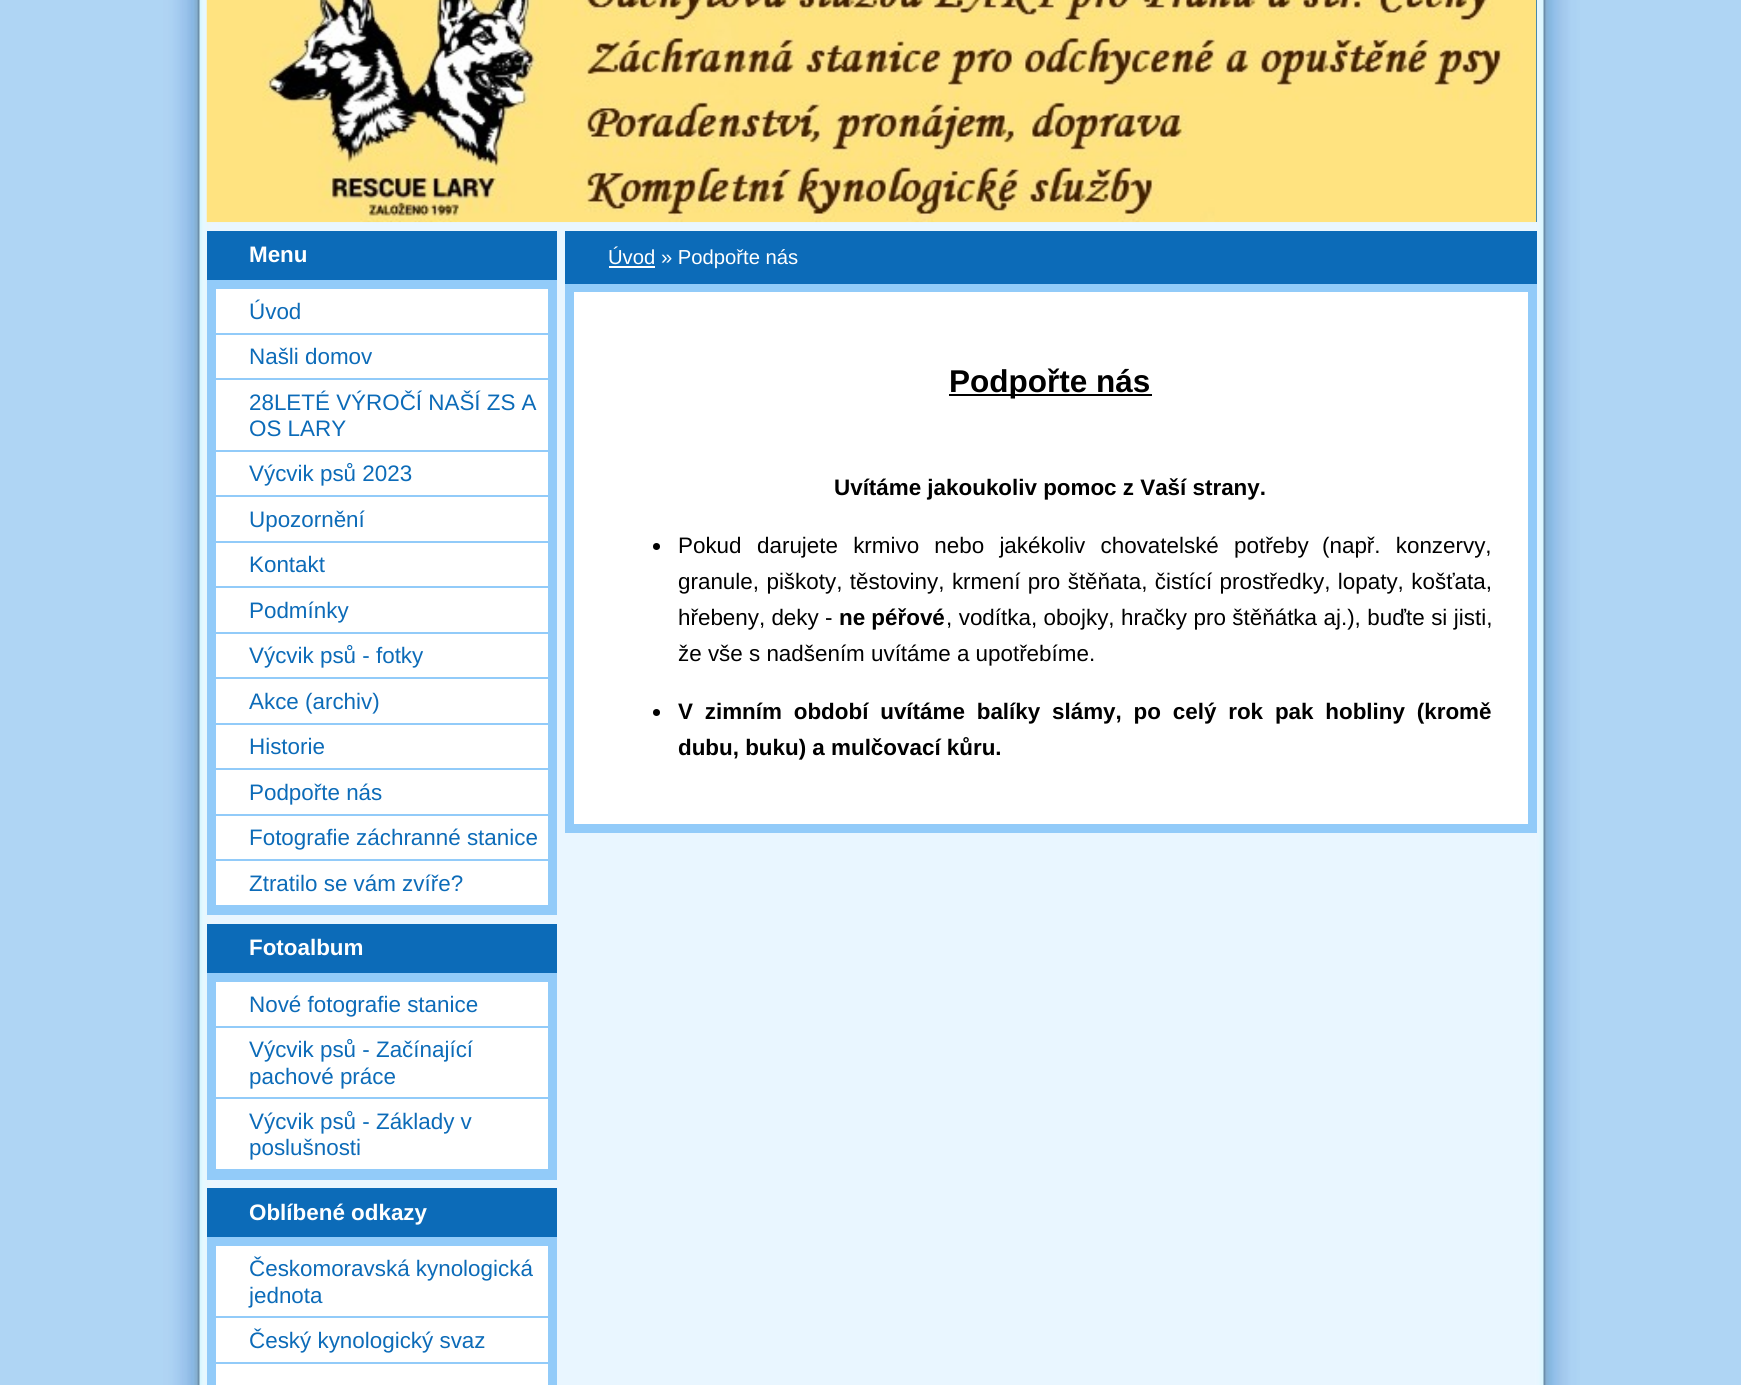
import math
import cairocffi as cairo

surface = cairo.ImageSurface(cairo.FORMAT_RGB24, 1741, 1385)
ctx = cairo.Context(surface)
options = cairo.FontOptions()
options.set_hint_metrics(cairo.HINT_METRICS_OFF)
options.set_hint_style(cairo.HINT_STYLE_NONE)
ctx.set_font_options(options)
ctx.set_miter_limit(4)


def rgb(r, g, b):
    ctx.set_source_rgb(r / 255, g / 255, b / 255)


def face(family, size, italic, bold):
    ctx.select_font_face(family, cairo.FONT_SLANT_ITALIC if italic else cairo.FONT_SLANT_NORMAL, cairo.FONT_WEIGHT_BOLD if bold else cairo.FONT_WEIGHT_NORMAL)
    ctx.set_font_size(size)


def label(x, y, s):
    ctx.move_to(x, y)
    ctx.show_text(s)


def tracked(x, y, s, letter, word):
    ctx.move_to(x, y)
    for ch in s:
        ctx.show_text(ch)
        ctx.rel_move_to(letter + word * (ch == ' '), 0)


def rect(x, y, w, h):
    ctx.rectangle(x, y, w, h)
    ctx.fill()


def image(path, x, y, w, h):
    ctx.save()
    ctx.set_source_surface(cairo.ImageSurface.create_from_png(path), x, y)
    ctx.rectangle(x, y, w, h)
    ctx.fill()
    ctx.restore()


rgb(175, 213, 244)
ctx.paint()
image('image0.png', 163, 0, 1417, 1385)
rgb(12, 107, 184)
rect(1536, 0, 1, 222)
image('image1.png', 206, 0, 1331, 223)
rect(207, 231, 350, 49)
face('Liberation Sans', 22.4, 0, 1)
rgb(255, 255, 255)
label(249, 262, 'Menu')
rect(216, 289, 332, 616)
ctx.rectangle(211.5, 284.5, 341, 626)
rgb(146, 203, 249)
ctx.set_line_width(9)
ctx.stroke()
rect(215, 333, 333, 2)
face('Liberation Sans', 22.4, 0, 0)
rgb(12, 107, 184)
label(249, 319, 'Úvod')
rgb(146, 203, 249)
rect(215, 378, 333, 2)
rgb(12, 107, 184)
label(249, 364, 'Našli domov')
rgb(146, 203, 249)
rect(215, 450, 333, 2)
rgb(12, 107, 184)
label(249, 410, '28LETÉ VÝROČÍ NAŠÍ ZS A')
label(249, 436, 'OS LARY')
rgb(146, 203, 249)
rect(215, 495, 333, 2)
rgb(12, 107, 184)
label(249, 481, 'Výcvik psů 2023')
rgb(146, 203, 249)
rect(215, 541, 333, 2)
rgb(12, 107, 184)
label(249, 527, 'Upozornění')
rgb(146, 203, 249)
rect(215, 586, 333, 2)
rgb(12, 107, 184)
label(249, 572, 'Kontakt')
rgb(146, 203, 249)
rect(215, 632, 333, 2)
rgb(12, 107, 184)
label(249, 618, 'Podmínky')
rgb(146, 203, 249)
rect(215, 677, 333, 2)
rgb(12, 107, 184)
label(249, 663, 'Výcvik psů - fotky')
rgb(146, 203, 249)
rect(215, 723, 333, 2)
rgb(12, 107, 184)
label(249, 709, 'Akce (archiv)')
rgb(146, 203, 249)
rect(215, 768, 333, 2)
rgb(12, 107, 184)
label(249, 754, 'Historie')
rgb(146, 203, 249)
rect(215, 814, 333, 2)
rgb(12, 107, 184)
label(249, 800, 'Podpořte nás')
rgb(146, 203, 249)
rect(215, 859, 333, 2)
rgb(12, 107, 184)
label(249, 845, 'Fotografie záchranné stanice')
rgb(146, 203, 249)
rect(215, 905, 333, 1)
rgb(12, 107, 184)
label(249, 891, 'Ztratilo se vám zvíře?')
rect(207, 924, 350, 49)
face('Liberation Sans', 22.4, 0, 1)
rgb(255, 255, 255)
label(249, 955, 'Fotoalbum')
rect(216, 982, 332, 187)
ctx.rectangle(211.5, 977.5, 341, 198)
rgb(146, 203, 249)
ctx.stroke()
rect(215, 1026, 333, 2)
face('Liberation Sans', 22.4, 0, 0)
rgb(12, 107, 184)
label(249, 1012, 'Nové fotografie stanice')
rgb(146, 203, 249)
rect(215, 1097, 333, 2)
rgb(12, 107, 184)
label(249, 1057, 'Výcvik psů - Začínající')
label(249, 1084, 'pachové práce')
rgb(146, 203, 249)
rect(215, 1169, 333, 2)
rgb(12, 107, 184)
label(249, 1129, 'Výcvik psů - Základy v')
label(249, 1155, 'poslušnosti')
rect(207, 1188, 350, 49)
face('Liberation Sans', 22.4, 0, 1)
rgb(255, 255, 255)
label(249, 1220, 'Oblíbené odkazy')
ctx.rectangle(211.5, 1241.5, 341, 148)
ctx.fill_preserve()
rgb(146, 203, 249)
ctx.stroke()
rect(215, 1316, 333, 2)
face('Liberation Sans', 22.4, 0, 0)
rgb(12, 107, 184)
label(249, 1276, 'Českomoravská kynologická')
label(249, 1303, 'jednota')
rgb(146, 203, 249)
rect(215, 1362, 333, 2)
rgb(12, 107, 184)
label(249, 1348, 'Český kynologický svaz')
rect(565, 231, 972, 53)
rgb(255, 255, 255)
rect(609, 266, 46, 2)
face('Liberation Sans', 20.25, 0, 0)
label(608, 264, 'Úvod » Podpořte nás')
ctx.rectangle(569.5, 288.5, 963, 540)
rgb(146, 203, 249)
ctx.stroke()
rgb(255, 255, 255)
rect(574, 292, 954, 532)
rgb(0, 0, 0)
rect(949, 394, 203, 2)
face('Liberation Sans', 31.5, 0, 1)
label(949, 392, 'Podpořte nás')
face('Liberation Sans', 22.4, 0, 1)
label(834, 495, 'Uvítáme jakoukoliv pomoc z Vaší strany.')
ctx.new_path()
ctx.arc(656.5, 546.5, 3.5, 0, 2 * math.pi)
ctx.fill()
face('Liberation Sans', 22.4, 0, 0)
label(678, 553, 'Pokud')
tracked(757, 553, 'darujete krmivo nebo jakékoliv chovatelské potřeby', 0, 9)
tracked(1322, 553, '(např. konzervy,', 0, 9)
tracked(678, 589, 'granule, piškoty, těstoviny, krmení pro štěňata, čistící prostředky, lopaty, košťata,', 0, 1.25)
label(678, 625, 'hřebeny, deky -')
face('Liberation Sans', 22.4, 0, 1)
label(839, 625, 'ne péřové')
face('Liberation Sans', 22.4, 0, 0)
tracked(946, 625, ', vodítka, obojky, hračky pro štěňátka aj.), buďte si jisti,', 0, 0.25)
label(678, 661, 'že vše s nadšením uvítáme a upotřebíme.')
ctx.new_path()
ctx.arc(656.5, 712.5, 3.5, 0, 2 * math.pi)
ctx.fill()
face('Liberation Sans', 22.4, 0, 1)
tracked(678, 719, 'V zimním období uvítáme balíky slámy, po celý rok pak hobliny (kromě', 0, 5.6)
label(678, 755, 'dubu, buku) a mulčovací kůru.')
surface.write_to_png('render.png')
